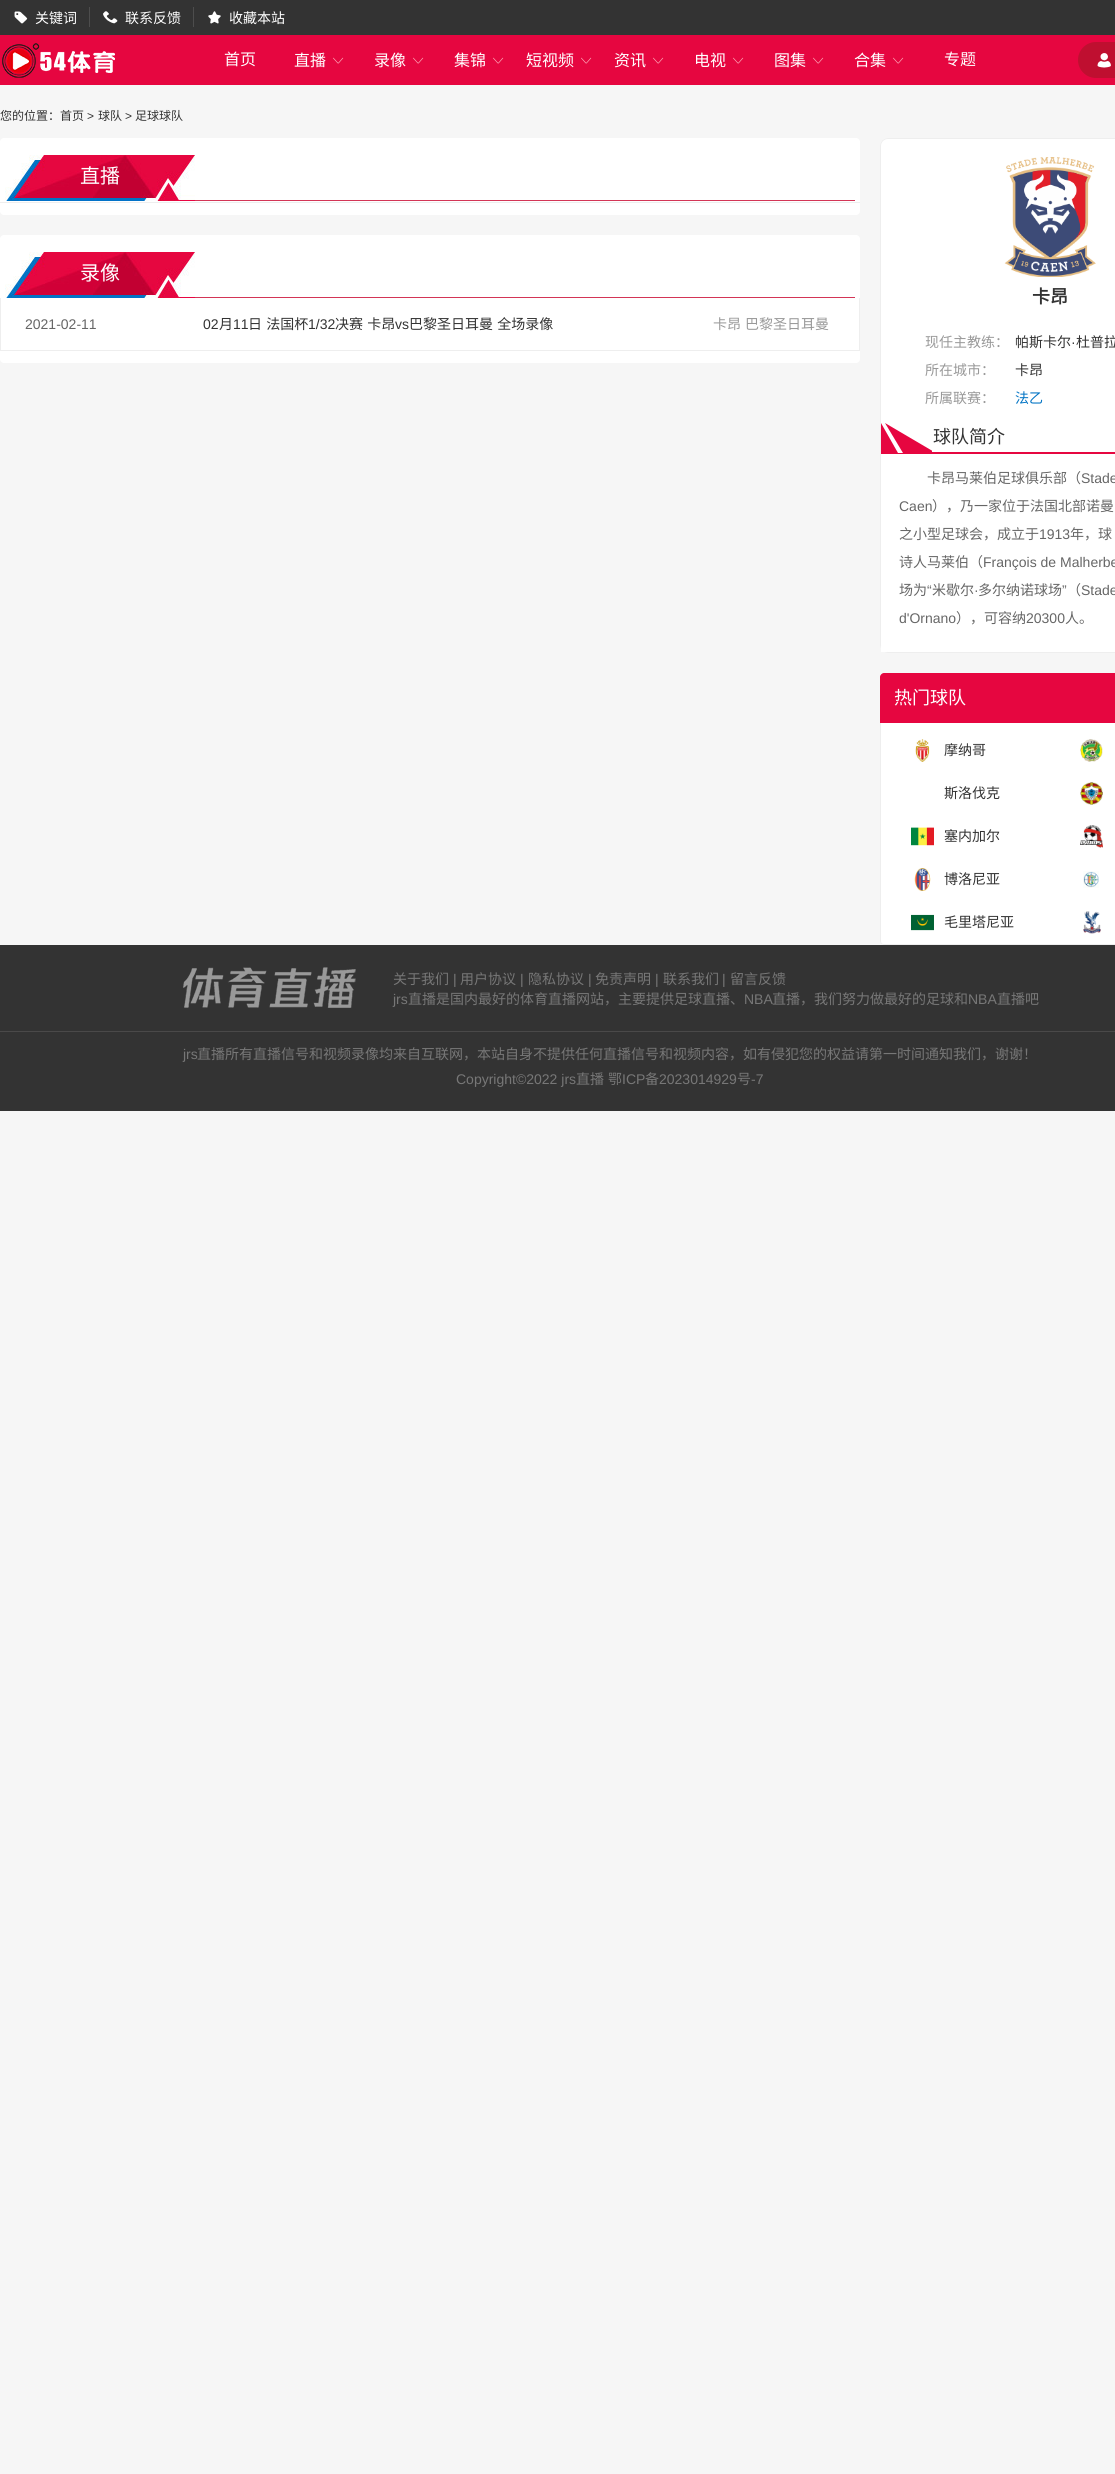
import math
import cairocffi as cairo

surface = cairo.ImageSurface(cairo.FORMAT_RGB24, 1115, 2474)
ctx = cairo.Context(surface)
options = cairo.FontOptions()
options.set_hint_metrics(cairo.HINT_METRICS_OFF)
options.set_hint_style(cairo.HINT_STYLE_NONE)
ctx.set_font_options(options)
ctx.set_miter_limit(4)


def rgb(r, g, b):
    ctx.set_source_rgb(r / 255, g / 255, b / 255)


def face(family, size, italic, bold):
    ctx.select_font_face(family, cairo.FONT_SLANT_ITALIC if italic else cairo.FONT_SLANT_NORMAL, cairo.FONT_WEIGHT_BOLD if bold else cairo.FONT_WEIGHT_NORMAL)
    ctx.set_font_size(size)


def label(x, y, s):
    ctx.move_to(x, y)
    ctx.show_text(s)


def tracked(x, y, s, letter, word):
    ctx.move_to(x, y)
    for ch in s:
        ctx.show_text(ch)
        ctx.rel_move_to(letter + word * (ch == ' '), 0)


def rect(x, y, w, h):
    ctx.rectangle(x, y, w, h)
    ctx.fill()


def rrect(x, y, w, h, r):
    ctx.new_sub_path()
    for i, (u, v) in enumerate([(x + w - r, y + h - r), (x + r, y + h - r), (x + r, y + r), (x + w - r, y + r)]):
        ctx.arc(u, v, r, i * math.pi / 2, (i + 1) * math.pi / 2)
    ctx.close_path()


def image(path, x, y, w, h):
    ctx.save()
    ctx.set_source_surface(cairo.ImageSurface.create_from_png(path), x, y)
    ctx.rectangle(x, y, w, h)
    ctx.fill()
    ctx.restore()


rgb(246, 246, 246)
ctx.paint()
rgb(51, 51, 51)
rect(0, 0, 1115, 35)
rgb(77, 77, 77)
rect(89, 7, 1, 20)
image('image0.png', 14, 11, 14, 13)
face('Noto Sans CJK SC', 14, 0, 0)
rgb(255, 255, 255)
label(35, 23, '关键词')
rgb(77, 77, 77)
rect(193, 7, 1, 20)
image('image1.png', 103, 11, 15, 13)
rgb(255, 255, 255)
label(125, 23, '联系反馈')
image('image2.png', 208, 11, 13, 13)
label(229, 23, '收藏本站')
rgb(230, 6, 64)
rect(0, 35, 1115, 50)
image('image3.png', 2, 43, 113, 35)
face('Noto Sans CJK SC', 16, 0, 0)
rgb(255, 255, 255)
label(224, 65, '首页')
label(294, 66, '直播')
image('image4.png', 333, 57, 11, 7)
label(374, 66, '录像')
image('image4.png', 413, 57, 11, 7)
label(454, 66, '集锦')
image('image4.png', 493, 57, 11, 7)
label(526, 66, '短视频')
image('image4.png', 581, 57, 11, 7)
label(614, 66, '资讯')
image('image4.png', 653, 57, 11, 7)
label(694, 66, '电视')
image('image4.png', 733, 57, 11, 7)
label(774, 66, '图集')
image('image4.png', 813, 57, 11, 7)
label(854, 66, '合集')
image('image4.png', 893, 57, 11, 7)
label(944, 65, '专题')
rgb(191, 15, 48)
rrect(1078, 42, 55, 36, 18)
ctx.fill()
image('image5.png', 1097, 53, 14, 15)
face('Noto Sans CJK SC', 12, 0, 0)
rgb(51, 51, 51)
label(0, 120, '您的位置：首页')
face('Liberation Sans', 12, 0, 0)
label(87, 120, '>')
face('Noto Sans CJK SC', 12, 0, 0)
label(98, 120, '球队')
face('Liberation Sans', 12, 0, 0)
label(125, 120, '>')
face('Noto Sans CJK SC', 12, 0, 0)
label(135, 120, '足球球队')
rgb(255, 255, 255)
rrect(0, 138, 860, 77, 4)
ctx.fill()
rgb(211, 53, 86)
rect(195, 200, 660, 1)
image('image6.png', 5, 155, 190, 46)
face('Noto Sans CJK SC', 20, 0, 0)
rgb(255, 255, 255)
label(80, 183, '直播')
rgb(238, 238, 238)
rect(0, 202, 860, 1)
rgb(255, 255, 255)
rrect(0, 235, 860, 128, 4)
ctx.fill()
rgb(211, 53, 86)
rect(195, 297, 660, 1)
image('image6.png', 5, 252, 190, 46)
rgb(255, 255, 255)
label(80, 280, '录像')
rgb(238, 238, 238)
rect(859, 298, 1, 53)
rect(0, 298, 1, 53)
rect(1, 350, 858, 1)
face('Liberation Sans', 14, 0, 0)
rgb(102, 102, 102)
label(25, 329, '2021-02-11')
rgb(51, 51, 51)
label(203, 329, '02')
face('Noto Sans CJK SC', 14, 0, 0)
label(219, 329, '月')
face('Liberation Sans', 14, 0, 0)
label(233, 329, '11')
face('Noto Sans CJK SC', 14, 0, 0)
tracked(248, 329, '日 法国杯', 0, 1)
face('Liberation Sans', 14, 0, 0)
label(308, 329, '1/32')
face('Noto Sans CJK SC', 14, 0, 0)
tracked(335, 329, '决赛 卡昂', 0, 1)
face('Liberation Sans', 14, 0, 0)
label(395, 329, 'vs')
face('Noto Sans CJK SC', 14, 0, 0)
tracked(409, 329, '巴黎圣日耳曼 全场录像', 0, 1)
rgb(153, 153, 153)
label(713, 329, '卡昂')
label(745, 329, '巴黎圣日耳曼')
rgb(255, 255, 255)
ctx.new_path()
ctx.move_to(888, 138)
ctx.line_to(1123, 138)
ctx.line_to(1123, 653)
ctx.line_to(888, 653)
ctx.curve_to(883.5, 653, 880, 649.5, 880, 645)
ctx.line_to(880, 146)
ctx.curve_to(880, 141.5, 883.5, 138, 888, 138)
ctx.close_path()
ctx.fill()
rrect(880.5, 138.5, 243, 514, 7.5)
rgb(238, 238, 238)
ctx.set_line_width(1)
ctx.stroke()
image('image7.png', 1004, 157, 92, 120)
face('Noto Sans CJK SC', 18, 0, 1)
rgb(51, 51, 51)
label(1032, 303, '卡昂')
face('Noto Sans CJK SC', 14, 0, 0)
rgb(153, 153, 153)
label(925, 347, '现任主教练：')
rgb(51, 51, 51)
label(1015, 347, '帕斯卡尔')
face('Liberation Sans', 14, 0, 0)
label(1071, 347, '·')
face('Noto Sans CJK SC', 14, 0, 0)
label(1076, 347, '杜普拉')
rgb(153, 153, 153)
label(925, 375, '所在城市：')
rgb(51, 51, 51)
label(1015, 375, '卡昂')
rgb(153, 153, 153)
label(925, 403, '所属联赛：')
rgb(0, 115, 196)
label(1015, 403, '法乙')
rgb(255, 255, 255)
rect(881, 646, 6, 6)
rgb(230, 6, 64)
rect(881, 452, 234, 2)
image('image8.png', 881, 423, 51, 30)
face('Noto Sans CJK SC', 18, 0, 0)
rgb(51, 51, 51)
label(933, 443, '球队简介')
face('Noto Sans CJK SC', 14, 0, 0)
rgb(102, 102, 102)
label(927, 483, '卡昂马莱伯足球俱乐部（')
face('Liberation Sans', 14, 0, 0)
label(1081, 483, 'Stade')
label(899, 511, 'Caen')
face('Noto Sans CJK SC', 14, 0, 0)
label(932, 511, '），乃一家位于法国北部诺曼')
label(899, 539, '之小型足球会，成立于')
face('Liberation Sans', 14, 0, 0)
label(1039, 539, '1913')
face('Noto Sans CJK SC', 14, 0, 0)
label(1070, 539, '年，球')
label(899, 567, '诗人马莱伯（')
face('Liberation Sans', 14, 0, 0)
label(983, 567, 'François de Malherbe')
face('Noto Sans CJK SC', 14, 0, 0)
label(899, 595, '场为')
face('Liberation Sans', 14, 0, 0)
label(927, 595, '“')
face('Noto Sans CJK SC', 14, 0, 0)
label(932, 595, '米歇尔')
label(978, 595, '多尔纳诺球场')
face('Liberation Sans', 14, 0, 0)
label(1062, 595, '”')
face('Noto Sans CJK SC', 14, 0, 0)
label(1067, 595, '（')
face('Liberation Sans', 14, 0, 0)
label(1081, 595, 'Stade')
label(974, 595, '·')
label(899, 623, 'd\'Ornano')
face('Noto Sans CJK SC', 14, 0, 0)
label(956, 623, '），可容纳')
face('Liberation Sans', 14, 0, 0)
label(1026, 623, '20300')
face('Noto Sans CJK SC', 14, 0, 0)
label(1065, 623, '人。')
rgb(230, 6, 64)
ctx.new_path()
ctx.move_to(884, 673)
ctx.line_to(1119, 673)
ctx.line_to(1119, 723)
ctx.line_to(880, 723)
ctx.line_to(880, 677)
ctx.curve_to(880, 675, 882, 673, 884, 673)
ctx.close_path()
ctx.fill()
face('Noto Sans CJK SC', 18, 0, 0)
rgb(255, 255, 255)
label(894, 704, '热门球队')
ctx.new_path()
ctx.move_to(880, 723)
ctx.line_to(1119, 723)
ctx.line_to(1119, 945)
ctx.line_to(884, 945)
ctx.curve_to(882, 945, 880, 943, 880, 941)
ctx.close_path()
ctx.fill()
rgb(238, 238, 238)
ctx.set_fill_rule(cairo.FILL_RULE_EVEN_ODD)
ctx.new_path()
ctx.move_to(880, 723)
ctx.line_to(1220, 723)
ctx.line_to(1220, 941)
ctx.curve_to(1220, 943, 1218, 945, 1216, 945)
ctx.line_to(884, 945)
ctx.curve_to(882, 945, 880, 943, 880, 941)
ctx.close_path()
ctx.move_to(881, 723)
ctx.line_to(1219, 723)
ctx.line_to(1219, 941)
ctx.curve_to(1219, 943, 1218, 944, 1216, 944)
ctx.line_to(884, 944)
ctx.curve_to(882, 944, 881, 943, 881, 941)
ctx.close_path()
ctx.fill()
image('image9.png', 915, 739, 15, 23)
face('Noto Sans CJK SC', 14, 0, 0)
rgb(51, 51, 51)
label(944, 755, '摩纳哥')
image('image10.png', 1080, 739, 23, 23)
label(944, 798, '斯洛伐克')
image('image11.png', 1080, 782, 23, 23)
image('image12.png', 911, 827, 23, 19)
label(944, 841, '塞内加尔')
image('image13.png', 1080, 825, 23, 23)
image('image14.png', 914, 868, 17, 23)
label(944, 884, '博洛尼亚')
image('image15.png', 1083, 871, 16, 17)
image('image16.png', 911, 914, 23, 17)
label(944, 927, '毛里塔尼亚')
image('image17.png', 1083, 911, 18, 23)
rect(0, 945, 1115, 166)
rgb(74, 73, 73)
rect(0, 1031, 1115, 1)
image('image18.png', 183, 967, 173, 41)
rgb(119, 119, 119)
label(393, 984, '关于我们')
face('Liberation Sans', 14, 0, 0)
label(453, 984, '|')
face('Noto Sans CJK SC', 14, 0, 0)
label(460, 984, '用户协议')
face('Liberation Sans', 14, 0, 0)
label(520, 984, '|')
face('Noto Sans CJK SC', 14, 0, 0)
label(528, 984, '隐私协议')
face('Liberation Sans', 14, 0, 0)
label(588, 984, '|')
face('Noto Sans CJK SC', 14, 0, 0)
label(595, 984, '免责声明')
face('Liberation Sans', 14, 0, 0)
label(655, 984, '|')
face('Noto Sans CJK SC', 14, 0, 0)
label(663, 984, '联系我们')
face('Liberation Sans', 14, 0, 0)
label(722, 984, '|')
face('Noto Sans CJK SC', 14, 0, 0)
label(730, 984, '留言反馈')
face('Liberation Sans', 14, 0, 0)
label(393, 1004, 'jrs')
face('Noto Sans CJK SC', 14, 0, 0)
label(408, 1004, '直播是国内最好的体育直播网站，主要提供足球直播、')
face('Liberation Sans', 14, 0, 0)
label(744, 1004, 'NBA')
face('Noto Sans CJK SC', 14, 0, 0)
label(772, 1004, '直播，我们努力做最好的足球和')
face('Liberation Sans', 14, 0, 0)
label(968, 1004, 'NBA')
face('Noto Sans CJK SC', 14, 0, 0)
label(997, 1004, '直播吧')
face('Liberation Sans', 14, 0, 0)
label(183, 1059, 'jrs')
face('Noto Sans CJK SC', 14, 0, 0)
label(197, 1059, '直播所有直播信号和视频录像均来自互联网，本站自身不提供任何直播信号和视频内容，如有侵犯您的权益请第一时间通知我们，谢谢！')
face('Liberation Sans', 14, 0, 0)
label(456, 1084, 'Copyright©2022 jrs')
face('Noto Sans CJK SC', 14, 0, 0)
label(576, 1084, '直播')
label(608, 1084, '鄂')
face('Liberation Sans', 14, 0, 0)
label(622, 1084, 'ICP')
face('Noto Sans CJK SC', 14, 0, 0)
label(645, 1084, '备')
face('Liberation Sans', 14, 0, 0)
label(659, 1084, '2023014929')
face('Noto Sans CJK SC', 14, 0, 0)
label(737, 1084, '号')
face('Liberation Sans', 14, 0, 0)
label(751, 1084, '-7')
surface.write_to_png('render.png')
